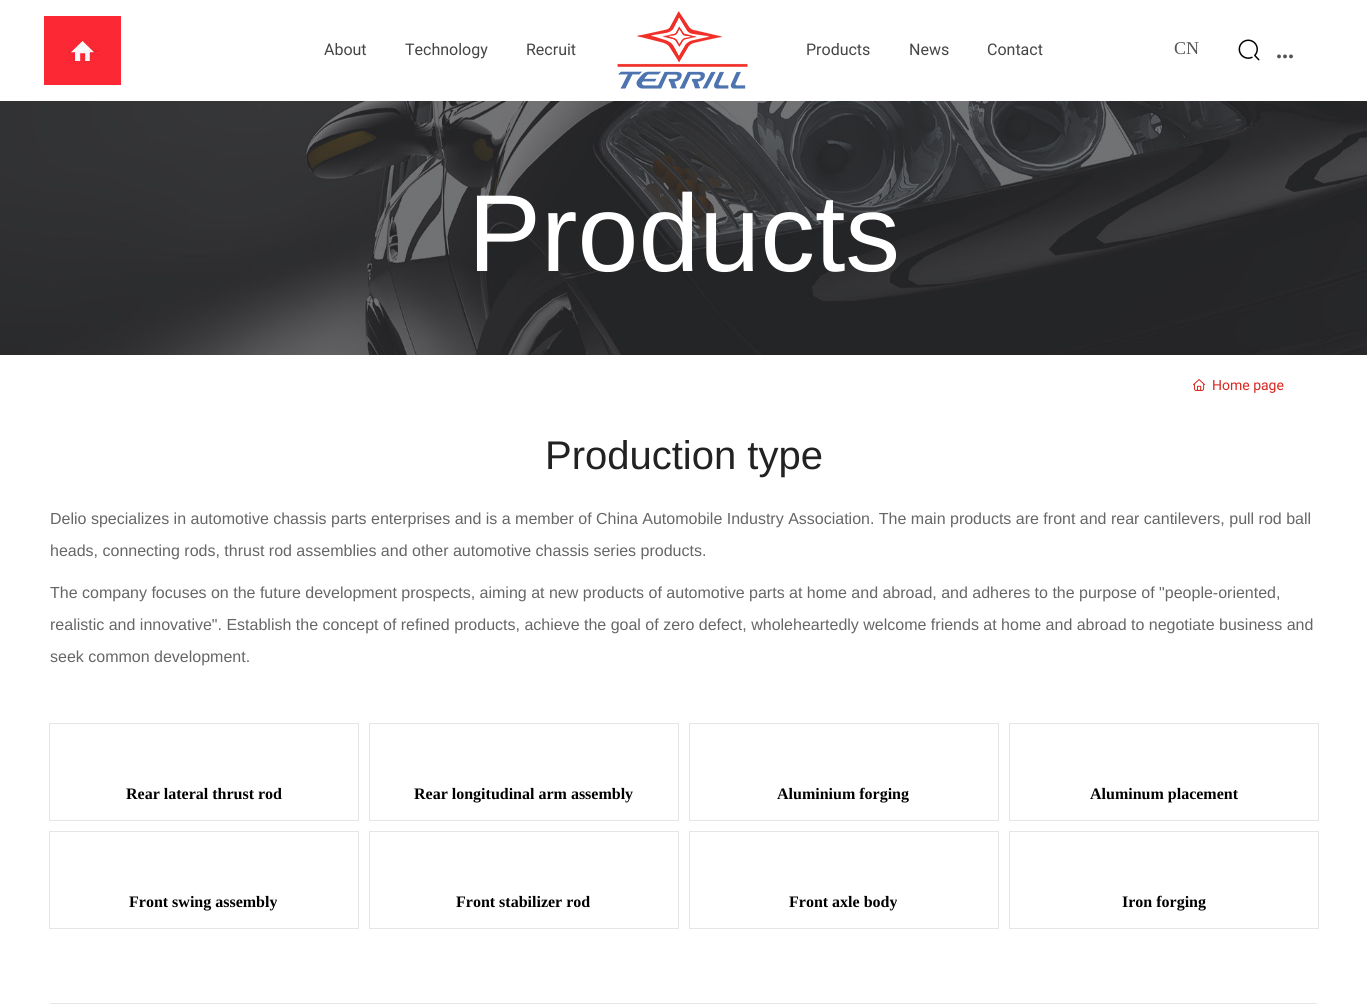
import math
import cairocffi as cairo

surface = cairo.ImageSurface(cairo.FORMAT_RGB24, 1367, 1006)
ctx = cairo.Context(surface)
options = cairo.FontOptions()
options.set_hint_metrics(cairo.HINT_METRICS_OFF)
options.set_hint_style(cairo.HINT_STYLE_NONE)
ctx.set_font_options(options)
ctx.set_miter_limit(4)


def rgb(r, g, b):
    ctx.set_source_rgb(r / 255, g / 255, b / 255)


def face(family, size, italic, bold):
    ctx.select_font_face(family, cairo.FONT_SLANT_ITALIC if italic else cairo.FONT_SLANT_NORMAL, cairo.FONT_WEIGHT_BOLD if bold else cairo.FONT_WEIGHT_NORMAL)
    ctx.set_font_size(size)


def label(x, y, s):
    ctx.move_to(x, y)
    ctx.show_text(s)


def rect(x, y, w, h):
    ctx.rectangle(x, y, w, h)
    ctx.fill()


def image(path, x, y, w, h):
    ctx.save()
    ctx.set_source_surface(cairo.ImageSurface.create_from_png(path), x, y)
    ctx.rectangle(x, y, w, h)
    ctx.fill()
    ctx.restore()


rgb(255, 255, 255)
ctx.paint()
image('image0.png', 44, 16, 77, 69)
image('image1.png', 617, 11, 131, 78)
face('Roboto', 16, 0, 0)
rgb(69, 69, 69)
label(324, 55, 'About')
label(405, 55, 'Technology')
label(526, 55, 'Recruit')
label(806, 55, 'Products')
label(909, 55, 'News')
label(987, 55, 'Contact')
face('Liberation Serif', 18, 0, 0)
rgb(84, 84, 84)
label(1174, 54, 'CN')
image('image2.png', 1238, 39, 22, 22)
face('Liberation Serif', 24, 0, 1)
label(1276, 58, '...')
image('image3.png', 0, 101, 1367, 254)
face('Liberation Sans', 109.5, 0, 0)
rgb(255, 255, 255)
label(468, 271, 'Products')
image('image4.png', 1193, 379, 12, 12)
face('Roboto', 14, 0, 0)
rgb(218, 37, 29)
label(1212, 390, 'Home page')
face('Liberation Sans', 40, 0, 0)
rgb(34, 34, 34)
label(545, 469, 'Production type')
face('Liberation Sans', 16, 0, 0)
rgb(102, 102, 102)
label(50, 524, 'Delio specializes in automotive chassis parts enterprises and is a member of China Automobile Industry Association. The main products are front and rear cantilevers, pull rod ball')
label(50, 556, 'heads, connecting rods, thrust rod assemblies and other automotive chassis series products.')
label(50, 598, 'The company focuses on the future development prospects, aiming at new products of automotive parts at home and abroad, and adheres to the purpose of "people-oriented,')
label(50, 630, 'realistic and innovative". Establish the concept of refined products, achieve the goal of zero defect, wholeheartedly welcome friends at home and abroad to negotiate business and')
label(50, 662, 'seek common development.')
ctx.rectangle(49.5, 723.5, 309, 97)
rgb(229, 229, 229)
ctx.set_line_width(1)
ctx.stroke()
face('Liberation Serif', 16, 0, 1)
rgb(0, 0, 0)
label(126, 799, 'Rear lateral thrust rod')
ctx.rectangle(369.5, 723.5, 309, 97)
rgb(229, 229, 229)
ctx.stroke()
rgb(0, 0, 0)
label(414, 799, 'Rear longitudinal arm assembly')
ctx.rectangle(689.5, 723.5, 309, 97)
rgb(229, 229, 229)
ctx.stroke()
rgb(0, 0, 0)
label(777, 799, 'Aluminium forging')
ctx.rectangle(1009.5, 723.5, 309, 97)
rgb(229, 229, 229)
ctx.stroke()
rgb(0, 0, 0)
label(1090, 799, 'Aluminum placement')
ctx.rectangle(49.5, 831.5, 309, 97)
rgb(229, 229, 229)
ctx.stroke()
rgb(0, 0, 0)
label(129, 907, 'Front swing assembly')
ctx.rectangle(369.5, 831.5, 309, 97)
rgb(229, 229, 229)
ctx.stroke()
rgb(0, 0, 0)
label(456, 907, 'Front stabilizer rod')
ctx.rectangle(689.5, 831.5, 309, 97)
rgb(229, 229, 229)
ctx.stroke()
rgb(0, 0, 0)
label(789, 907, 'Front axle body')
ctx.rectangle(1009.5, 831.5, 309, 97)
rgb(229, 229, 229)
ctx.stroke()
rgb(0, 0, 0)
label(1122, 907, 'Iron forging')
rgb(230, 230, 230)
rect(50, 1003, 1267, 1)
surface.write_to_png('render.png')
